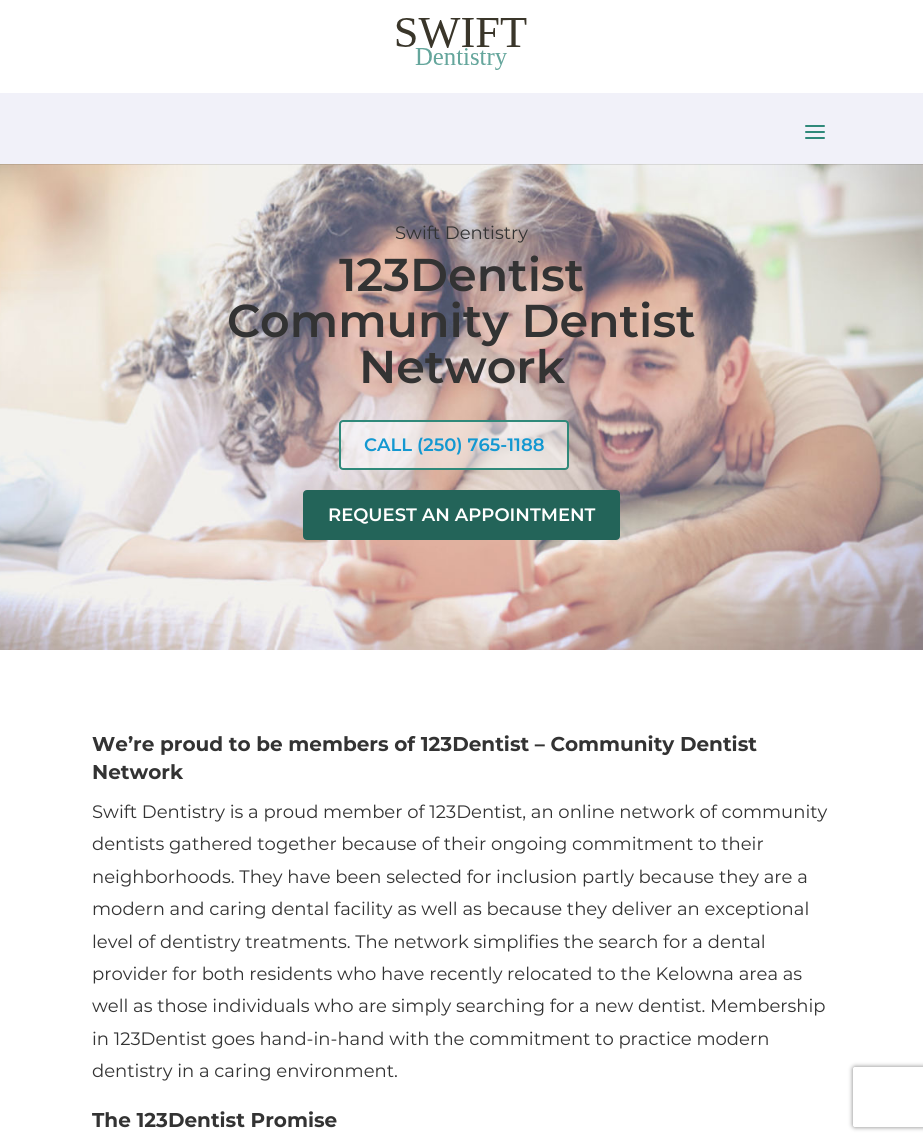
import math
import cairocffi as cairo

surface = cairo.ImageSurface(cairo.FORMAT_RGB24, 923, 1141)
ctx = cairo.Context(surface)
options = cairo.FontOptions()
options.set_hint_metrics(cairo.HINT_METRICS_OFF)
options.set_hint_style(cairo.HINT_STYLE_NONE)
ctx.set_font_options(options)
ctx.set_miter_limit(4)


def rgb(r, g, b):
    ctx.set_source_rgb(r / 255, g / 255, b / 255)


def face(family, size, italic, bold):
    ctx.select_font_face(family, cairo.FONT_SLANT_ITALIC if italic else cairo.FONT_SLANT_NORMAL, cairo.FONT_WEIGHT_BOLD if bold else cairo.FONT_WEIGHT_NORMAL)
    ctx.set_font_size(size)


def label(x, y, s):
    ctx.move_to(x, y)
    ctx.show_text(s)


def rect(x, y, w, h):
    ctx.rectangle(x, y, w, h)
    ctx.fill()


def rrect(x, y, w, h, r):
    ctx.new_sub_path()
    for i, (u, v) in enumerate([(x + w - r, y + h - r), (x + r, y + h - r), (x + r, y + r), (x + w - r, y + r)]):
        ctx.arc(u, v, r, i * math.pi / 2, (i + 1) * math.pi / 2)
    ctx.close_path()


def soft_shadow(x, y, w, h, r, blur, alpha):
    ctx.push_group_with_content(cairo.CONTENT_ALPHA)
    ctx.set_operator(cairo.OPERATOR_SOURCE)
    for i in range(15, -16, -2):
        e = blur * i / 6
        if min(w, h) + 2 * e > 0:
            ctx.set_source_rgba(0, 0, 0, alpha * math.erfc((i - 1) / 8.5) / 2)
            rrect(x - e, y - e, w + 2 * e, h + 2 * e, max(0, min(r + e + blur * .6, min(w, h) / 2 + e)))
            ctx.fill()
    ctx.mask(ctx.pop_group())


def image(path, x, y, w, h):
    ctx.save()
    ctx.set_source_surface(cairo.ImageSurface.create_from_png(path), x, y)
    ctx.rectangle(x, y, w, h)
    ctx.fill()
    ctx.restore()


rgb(255, 255, 255)
ctx.paint()
image('image0.png', 396, 18, 131, 52)
image('image2.png', 0, 164, 923, 486)
ctx.set_source_rgba(0, 0, 0, 0.1)
rect(0, 164, 923, 1)
rgb(241, 241, 249)
rect(0, 93, 923, 71)
image('image1.png', 805, 125, 20, 14)
face('Montserrat', 18, 0, 0)
rgb(51, 51, 51)
label(395, 239, 'Swift Dentistry')
face('Montserrat SemiBold', 46, 0, 0)
label(339, 291, '123Dentist')
label(227, 337, 'Community Dentist')
label(359, 383, 'Network')
ctx.set_source_rgba(1, 1, 1, 0.5)
rrect(340, 421, 228, 48, 3)
ctx.fill_preserve()
rgb(47, 137, 122)
ctx.stroke()
face('Montserrat SemiBold', 18, 0, 0)
rgb(19, 152, 209)
label(364, 451, 'CALL (250) 765-1188')
rgb(35, 100, 89)
rrect(304, 491, 315, 48, 3)
ctx.fill_preserve()
ctx.stroke()
rgb(255, 255, 255)
label(328, 521, 'REQUEST AN APPOINTMENT')
face('Montserrat', 20, 0, 1)
rgb(51, 51, 51)
label(92, 751, 'We’re proud to be members of 123Dentist – Community Dentist')
label(92, 779, 'Network')
face('Montserrat', 18, 0, 0)
label(92, 818, 'Swift Dentistry is a proud member of 123Dentist, an online network of community')
label(92, 850, 'dentists gathered together because of their ongoing commitment to their')
label(92, 883, 'neighborhoods. They have been selected for inclusion partly because they are a')
label(92, 915, 'modern and caring dental facility as well as because they deliver an exceptional')
label(92, 948, 'level of dentistry treatments. The network simplifies the search for a dental')
label(92, 980, 'provider for both residents who have recently relocated to the Kelowna area as')
label(92, 1012, 'well as those individuals who are simply searching for a new dentist. Membership')
label(92, 1045, 'in 123Dentist goes hand-in-hand with the commitment to practice modern')
label(92, 1077, 'dentistry in a caring environment.')
face('Montserrat', 20, 0, 1)
label(92, 1127, 'The 123Dentist Promise')
ctx.save()
ctx.set_fill_rule(cairo.FILL_RULE_EVEN_ODD)
ctx.new_path()
ctx.move_to(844, 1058)
ctx.line_to(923, 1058)
ctx.line_to(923, 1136)
ctx.line_to(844, 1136)
ctx.close_path()
ctx.move_to(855, 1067)
ctx.line_to(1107, 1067)
ctx.curve_to(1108, 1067, 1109, 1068, 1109, 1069)
ctx.line_to(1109, 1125)
ctx.curve_to(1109, 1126, 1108, 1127, 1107, 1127)
ctx.line_to(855, 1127)
ctx.curve_to(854, 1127, 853, 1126, 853, 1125)
ctx.line_to(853, 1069)
ctx.curve_to(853, 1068, 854, 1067, 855, 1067)
ctx.close_path()
ctx.clip()
rgb(128, 128, 128)
soft_shadow(853, 1067, 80, 60, 2, 2.5, 1)
ctx.restore()
surface.write_to_png('render.png')
